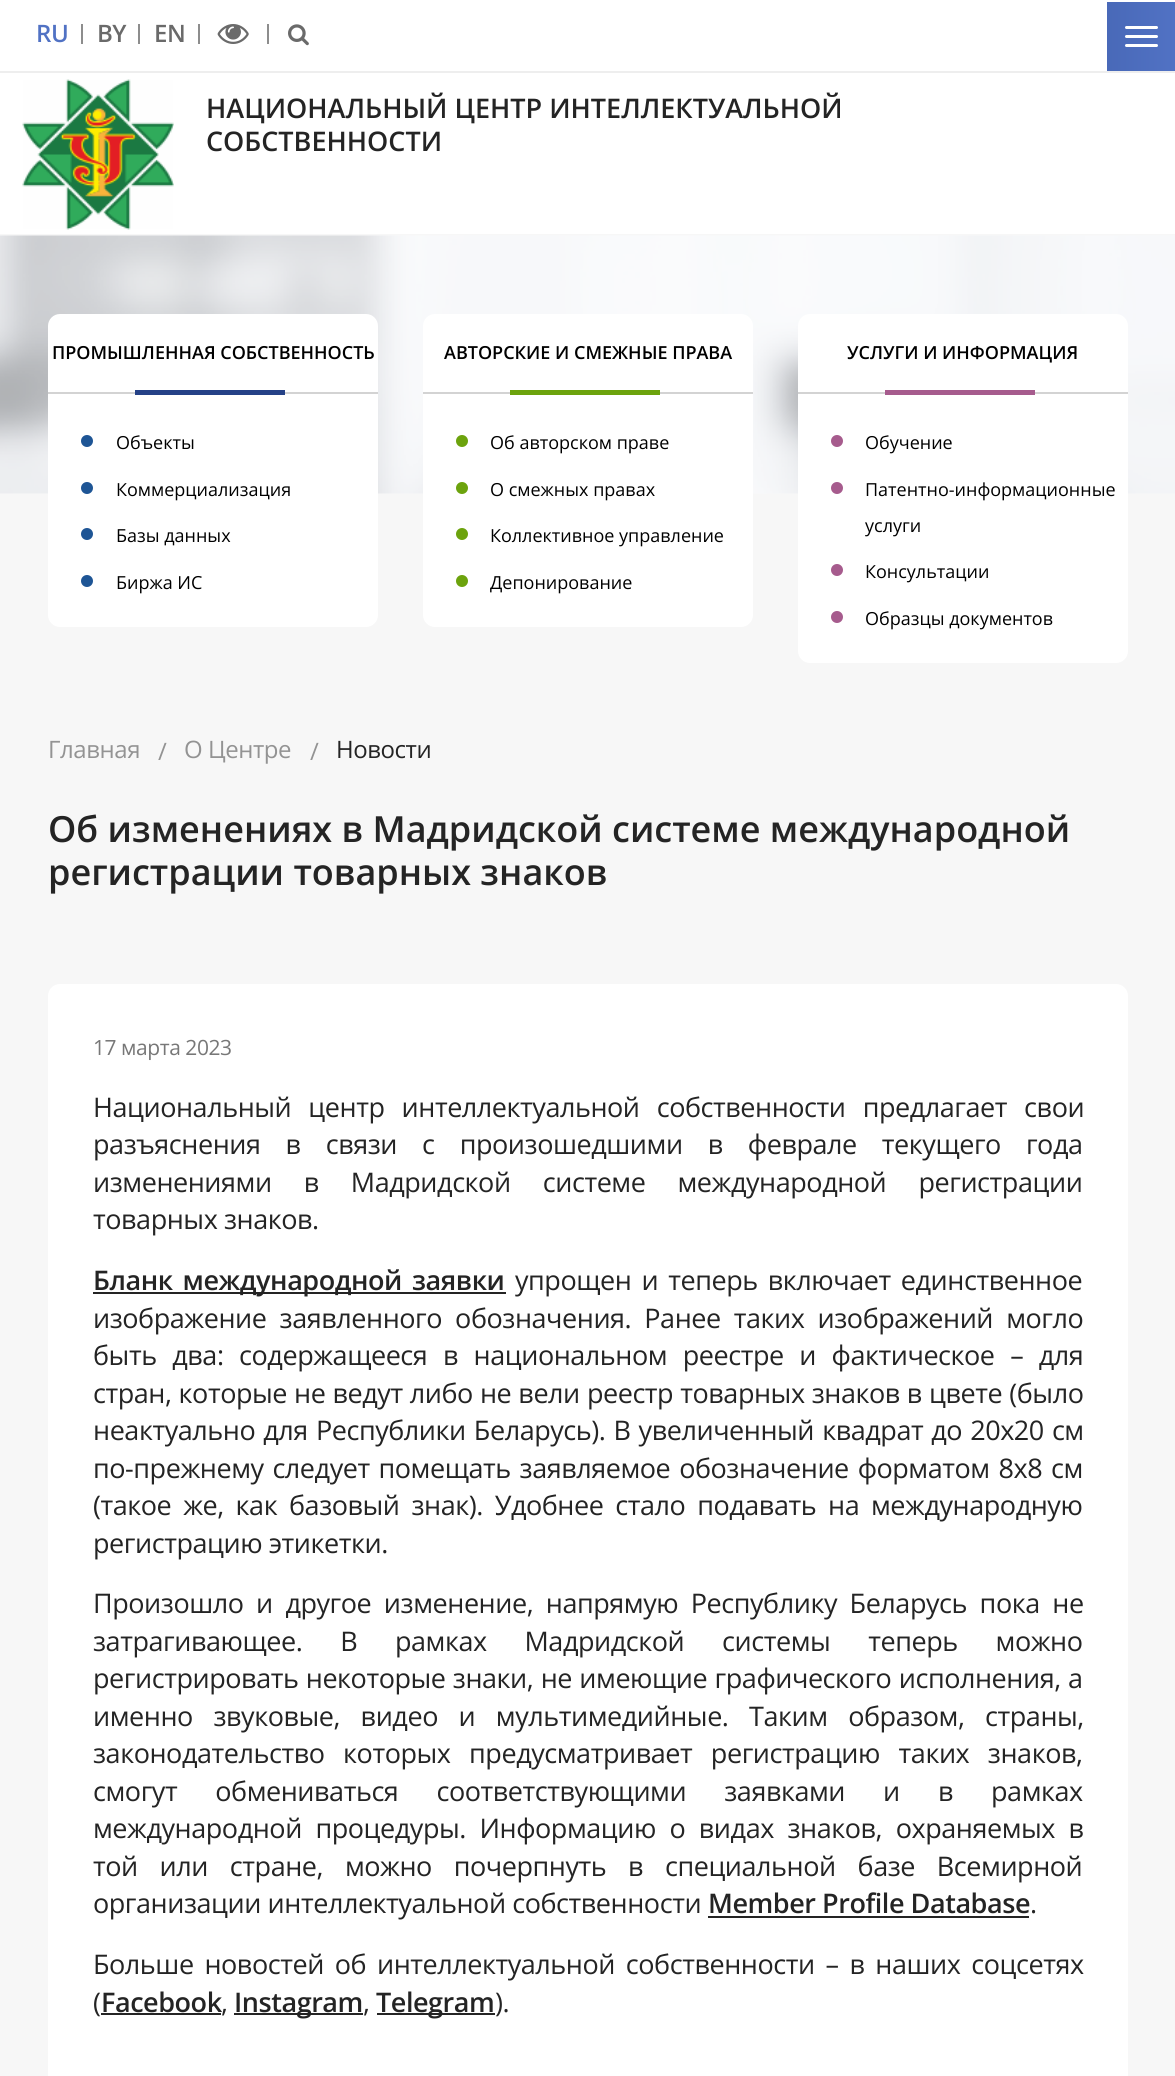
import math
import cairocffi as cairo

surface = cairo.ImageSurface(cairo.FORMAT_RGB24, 1175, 2076)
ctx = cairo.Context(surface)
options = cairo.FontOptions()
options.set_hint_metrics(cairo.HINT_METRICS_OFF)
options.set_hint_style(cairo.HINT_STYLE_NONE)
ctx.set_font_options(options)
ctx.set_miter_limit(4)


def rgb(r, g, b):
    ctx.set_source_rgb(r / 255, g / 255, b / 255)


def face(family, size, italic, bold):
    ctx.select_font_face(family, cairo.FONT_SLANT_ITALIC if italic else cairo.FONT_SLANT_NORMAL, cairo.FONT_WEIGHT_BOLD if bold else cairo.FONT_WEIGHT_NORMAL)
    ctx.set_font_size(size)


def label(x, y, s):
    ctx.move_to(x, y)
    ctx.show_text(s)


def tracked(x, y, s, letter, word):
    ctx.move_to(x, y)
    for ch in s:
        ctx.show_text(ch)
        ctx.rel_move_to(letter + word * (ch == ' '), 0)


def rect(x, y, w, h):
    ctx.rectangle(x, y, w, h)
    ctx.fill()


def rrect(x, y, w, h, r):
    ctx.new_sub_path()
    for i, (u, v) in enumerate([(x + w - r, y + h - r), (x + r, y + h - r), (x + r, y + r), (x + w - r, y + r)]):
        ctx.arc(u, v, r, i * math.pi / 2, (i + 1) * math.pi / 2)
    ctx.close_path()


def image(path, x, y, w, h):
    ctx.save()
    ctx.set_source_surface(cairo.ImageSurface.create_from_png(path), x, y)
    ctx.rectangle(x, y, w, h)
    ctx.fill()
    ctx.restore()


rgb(247, 247, 247)
ctx.paint()
rgb(255, 255, 255)
rect(0, 0, 1175, 234)
rgb(238, 238, 238)
rect(0, 71, 1175, 2)
face('Open Sans SemiBold', 24, 0, 0)
rgb(81, 114, 196)
tracked(36, 42, 'RU', -0.45, 0)
rgb(141, 141, 141)
rect(81, 24, 2, 20)
rgb(106, 106, 106)
tracked(97, 42, 'BY', -0.45, 0)
rgb(141, 141, 141)
rect(138, 24, 2, 20)
rgb(106, 106, 106)
tracked(154, 42, 'EN', -0.45, 0)
rgb(141, 141, 141)
rect(198, 24, 2, 20)
image('image0.png', 217, 24, 32, 20)
rect(267, 24, 2, 20)
image('image1.png', 288, 24, 21, 22)
gradient = cairo.LinearGradient(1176, 36, 1107, 36)
gradient.add_color_stop_rgba(0, 0.318, 0.447, 0.769, 1)
gradient.add_color_stop_rgba(1, 0.286, 0.412, 0.722, 1)
ctx.set_source(gradient)
rect(1107, 2, 68, 69)
rgb(255, 255, 255)
rrect(1125, 26, 33, 3, 1.5)
ctx.fill()
rrect(1125, 35, 33, 3, 1.5)
ctx.fill()
rrect(1125, 44, 33, 3, 1.5)
ctx.fill()
image('image2.png', 22, 79, 152, 151)
face('Open Sans SemiBold', 27, 0, 0)
rgb(36, 36, 36)
label(206, 118, 'НАЦИОНАЛЬНЫЙ ЦЕНТР ИНТЕЛЛЕКТУАЛЬНОЙ')
label(206, 151, 'СОБСТВЕННОСТИ')
image('image3.png', 0, 235, 1175, 259)
rgb(255, 255, 255)
rrect(48, 314, 330, 313, 12)
ctx.fill()
rgb(211, 211, 211)
rect(48, 392, 330, 2)
face('Open Sans SemiBold', 18, 0, 0)
rgb(0, 0, 0)
label(52, 359, 'ПРОМЫШЛЕННАЯ СОБСТВЕННОСТЬ')
rgb(37, 65, 135)
rect(135, 390, 150, 5)
rgb(30, 85, 149)
ctx.new_path()
ctx.arc(87, 441, 6, 0, 2 * math.pi)
ctx.fill()
face('Open Sans', 18, 0, 0)
rgb(0, 0, 0)
label(116, 449, 'Объекты')
rgb(30, 85, 149)
ctx.new_path()
ctx.arc(87, 488, 6, 0, 2 * math.pi)
ctx.fill()
rgb(0, 0, 0)
label(116, 496, 'Коммерциализация')
rgb(30, 85, 149)
ctx.new_path()
ctx.arc(87, 534, 6, 0, 2 * math.pi)
ctx.fill()
rgb(0, 0, 0)
label(116, 542, 'Базы данных')
rgb(30, 85, 149)
ctx.new_path()
ctx.arc(87, 581, 6, 0, 2 * math.pi)
ctx.fill()
rgb(0, 0, 0)
label(116, 589, 'Биржа ИС')
rgb(255, 255, 255)
rrect(423, 314, 330, 313, 12)
ctx.fill()
rgb(211, 211, 211)
rect(423, 392, 330, 2)
face('Open Sans SemiBold', 18, 0, 0)
rgb(0, 0, 0)
label(444, 359, 'АВТОРСКИЕ И СМЕЖНЫЕ ПРАВА')
rgb(108, 163, 13)
rect(510, 390, 150, 5)
ctx.new_path()
ctx.arc(462, 441, 6, 0, 2 * math.pi)
ctx.fill()
face('Open Sans', 18, 0, 0)
rgb(0, 0, 0)
label(490, 449, 'Об авторском праве')
rgb(108, 163, 13)
ctx.new_path()
ctx.arc(462, 488, 6, 0, 2 * math.pi)
ctx.fill()
rgb(0, 0, 0)
label(490, 496, 'О смежных правах')
rgb(108, 163, 13)
ctx.new_path()
ctx.arc(462, 534, 6, 0, 2 * math.pi)
ctx.fill()
rgb(0, 0, 0)
label(490, 542, 'Коллективное управление')
rgb(108, 163, 13)
ctx.new_path()
ctx.arc(462, 581, 6, 0, 2 * math.pi)
ctx.fill()
rgb(0, 0, 0)
label(490, 589, 'Депонирование')
rgb(255, 255, 255)
rrect(798, 314, 330, 349, 12)
ctx.fill()
rgb(211, 211, 211)
rect(798, 392, 330, 2)
face('Open Sans SemiBold', 18, 0, 0)
rgb(0, 0, 0)
label(847, 359, 'УСЛУГИ И ИНФОРМАЦИЯ')
rgb(166, 91, 141)
rect(885, 390, 150, 5)
ctx.new_path()
ctx.arc(837, 441, 6, 0, 2 * math.pi)
ctx.fill()
face('Open Sans', 18, 0, 0)
rgb(0, 0, 0)
label(865, 449, 'Обучение')
rgb(166, 91, 141)
ctx.new_path()
ctx.arc(837, 488, 6, 0, 2 * math.pi)
ctx.fill()
rgb(0, 0, 0)
label(865, 496, 'Патентно-информационные')
label(865, 532, 'услуги')
rgb(166, 91, 141)
ctx.new_path()
ctx.arc(837, 570, 6, 0, 2 * math.pi)
ctx.fill()
rgb(0, 0, 0)
label(865, 578, 'Консультации')
rgb(166, 91, 141)
ctx.new_path()
ctx.arc(837, 617, 6, 0, 2 * math.pi)
ctx.fill()
rgb(0, 0, 0)
label(865, 625, 'Образцы документов')
face('Open Sans', 24, 0, 0)
rgb(147, 147, 147)
tracked(48, 758, 'Главная', -0.45, 0)
tracked(158, 760, '/', -0.45, 0)
tracked(184, 758, 'О Центре', -0.45, 0)
tracked(310, 760, '/', -0.45, 0)
rgb(36, 36, 36)
tracked(336, 758, 'Новости', -0.45, 0)
face('Open Sans SemiBold', 36, 0, 0)
label(48, 842, 'Об изменениях в Мадридской системе международной')
label(48, 885, 'регистрации товарных знаков')
rgb(255, 255, 255)
rrect(48, 984, 1080, 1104, 12)
ctx.fill()
face('Open Sans', 21, 0, 0)
rgb(119, 119, 119)
tracked(93, 1055, '17 марта 2023', -0.45, 0)
face('Open Sans', 27, 0, 0)
rgb(36, 36, 36)
tracked(93, 1117, 'Национальный центр интеллектуальной собственности предлагает свои', -0.45, 10.5)
tracked(93, 1154, 'разъяснения в связи с произошедшими в феврале текущего года', -0.45, 18.5)
tracked(93, 1192, 'изменениями в Мадридской системе международной регистрации', -0.45, 25.5)
tracked(93, 1229, 'товарных знаков.', -0.45, 0)
rect(93, 1292, 413, 2)
face('Open Sans SemiBold', 27, 0, 0)
tracked(93, 1290, 'Бланк международной заявки', -0.45, 3.5)
face('Open Sans', 27, 0, 0)
tracked(515, 1290, 'упрощен и теперь включает единственное', -0.45, 3.5)
tracked(93, 1328, 'изображение заявленного обозначения. Ранее таких изображений могло', -0.45, 6.5)
tracked(93, 1365, 'быть два: содержащееся в национальном реестре и фактическое – для', -0.45, 9)
tracked(93, 1403, 'стран, которые не ведут либо не вели реестр товарных знаков в цвете (было', -0.45, 0.5)
tracked(93, 1440, 'неактуально для Республики Беларусь). В увеличенный квадрат до 20х20 см', -0.45, 1.5)
tracked(93, 1478, 'по-прежнему следует помещать заявляемое обозначение форматом 8х8 см', -0.45, 2.25)
tracked(93, 1515, '(такое же, как базовый знак). Удобнее стало подавать на международную', -0.45, 5.25)
tracked(93, 1553, 'регистрацию этикетки.', -0.45, 0)
tracked(93, 1613, 'Произошло и другое изменение, напрямую Республику Беларусь пока не', -0.45, 6)
tracked(93, 1651, 'затрагивающее. В рамках Мадридской системы теперь можно', -0.45, 31.25)
tracked(93, 1688, 'регистрировать некоторые знаки, не имеющие графического исполнения, а', -0.45, 0.75)
tracked(93, 1726, 'именно звуковые, видео и мультимедийные. Таким образом, страны,', -0.45, 14)
tracked(93, 1763, 'законодательство которых предусматривает регистрацию таких знаков,', -0.45, 12)
tracked(93, 1801, 'смогут обмениваться соответствующими заявками и в рамках', -0.45, 31.5)
tracked(93, 1838, 'международной процедуры. Информацию о видах знаков, охраняемых в', -0.45, 7)
tracked(93, 1876, 'той или стране, можно почерпнуть в специальной базе Всемирной', -0.45, 15.25)
tracked(93, 1913, 'организации интеллектуальной собственности', -0.45, 0)
face('Open Sans SemiBold', 27, 0, 0)
tracked(708, 1913, 'Member Profile Database', -0.45, 0)
rect(708, 1916, 321, 2)
face('Open Sans', 27, 0, 0)
tracked(1030, 1913, '.', -0.45, 0)
tracked(93, 1974, 'Больше новостей об интеллектуальной собственности – в наших соцсетях', -0.45, 4.25)
tracked(93, 2012, '(', -0.45, 0)
face('Open Sans SemiBold', 27, 0, 0)
tracked(101, 2012, 'Facebook', -0.45, 0)
rect(101, 2013, 120, 2)
face('Open Sans', 27, 0, 0)
tracked(221, 2012, ',', -0.45, 0)
rect(234, 2013, 129, 2)
face('Open Sans SemiBold', 27, 0, 0)
tracked(234, 2012, 'Instagram', -0.45, 0)
face('Open Sans', 27, 0, 0)
tracked(363, 2012, ',', -0.45, 0)
rect(377, 2013, 118, 2)
face('Open Sans SemiBold', 27, 0, 0)
tracked(376, 2012, 'Telegram', -0.45, 0)
face('Open Sans', 27, 0, 0)
tracked(495, 2012, ').', -0.45, 0)
surface.write_to_png('render.png')
